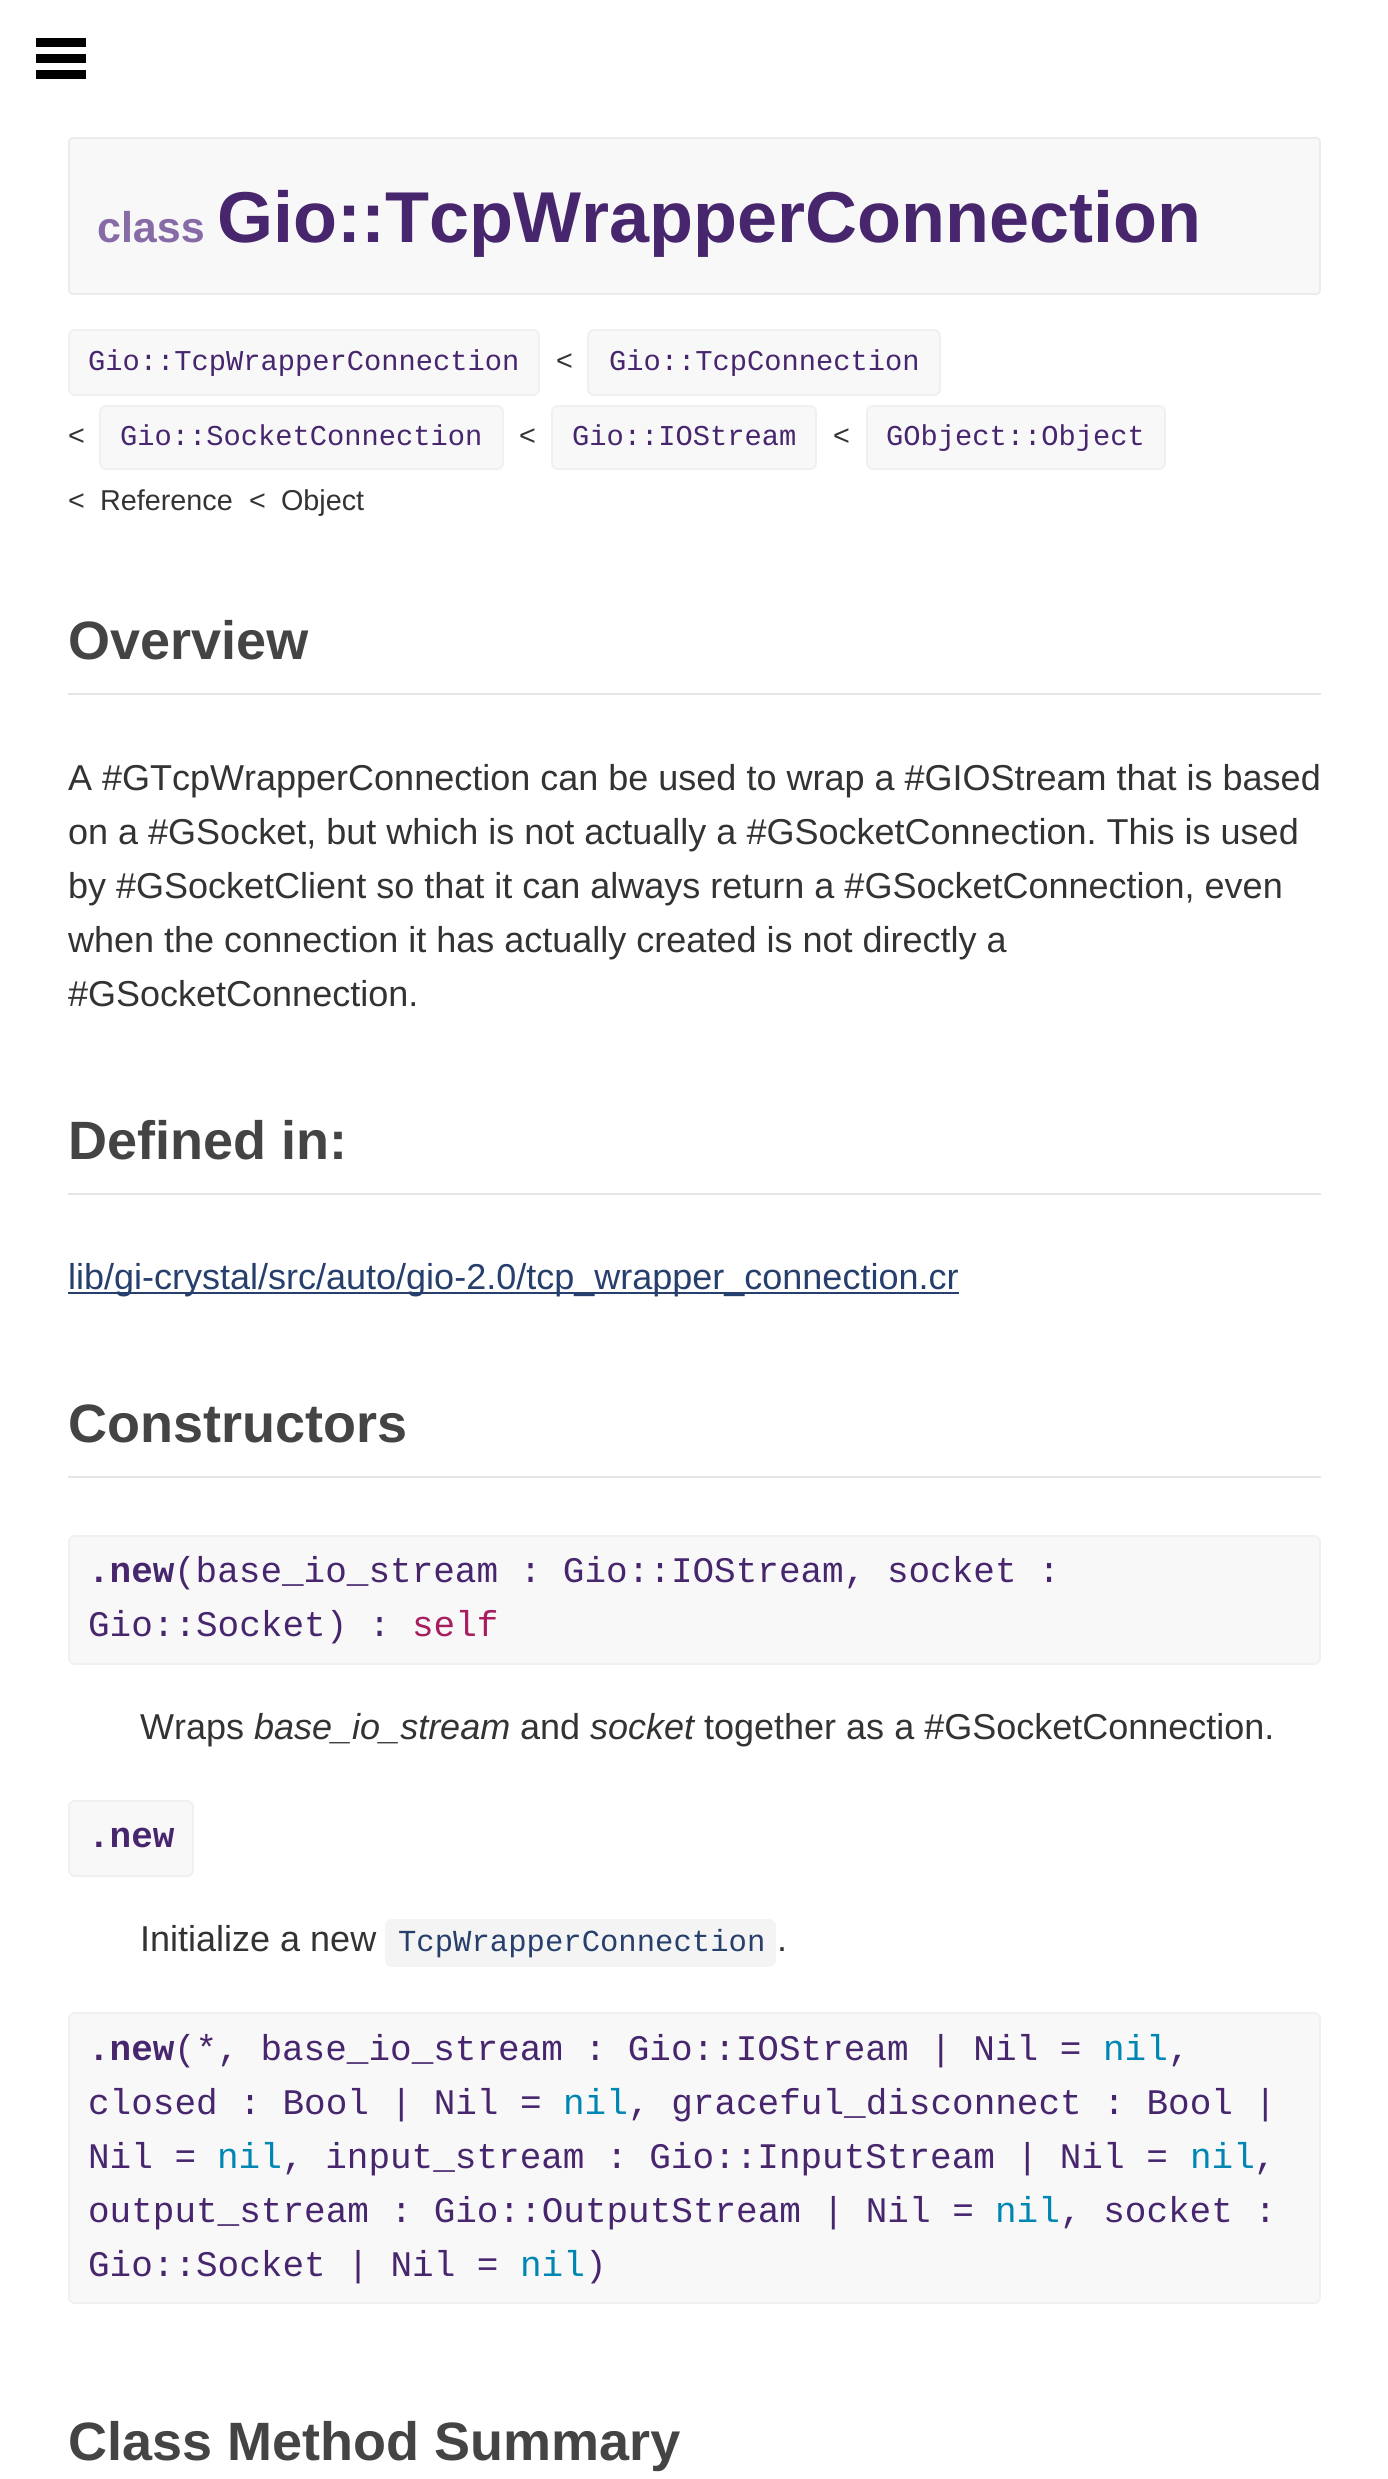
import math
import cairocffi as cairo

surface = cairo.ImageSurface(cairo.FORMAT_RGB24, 1388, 2479)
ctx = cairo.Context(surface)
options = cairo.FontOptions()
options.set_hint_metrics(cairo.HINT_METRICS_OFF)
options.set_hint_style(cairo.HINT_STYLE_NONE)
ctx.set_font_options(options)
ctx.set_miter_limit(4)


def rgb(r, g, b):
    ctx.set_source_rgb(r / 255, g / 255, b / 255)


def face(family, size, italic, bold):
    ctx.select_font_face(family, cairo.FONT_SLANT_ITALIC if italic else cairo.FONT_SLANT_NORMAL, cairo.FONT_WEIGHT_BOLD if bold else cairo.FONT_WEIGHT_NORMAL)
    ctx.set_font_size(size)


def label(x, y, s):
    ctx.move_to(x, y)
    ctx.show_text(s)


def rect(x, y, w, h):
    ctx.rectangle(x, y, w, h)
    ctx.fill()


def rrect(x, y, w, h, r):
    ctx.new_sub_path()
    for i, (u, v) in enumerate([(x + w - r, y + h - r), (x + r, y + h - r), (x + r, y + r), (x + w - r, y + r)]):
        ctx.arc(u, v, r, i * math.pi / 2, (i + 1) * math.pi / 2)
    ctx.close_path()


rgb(255, 255, 255)
ctx.paint()
rgb(0, 0, 0)
ctx.new_path()
ctx.move_to(36, 38)
ctx.line_to(36, 47)
ctx.line_to(86, 47)
ctx.line_to(86, 38)
ctx.close_path()
ctx.move_to(36, 54)
ctx.line_to(36, 63)
ctx.line_to(86, 63)
ctx.line_to(86, 54)
ctx.close_path()
ctx.move_to(36, 70)
ctx.line_to(36, 79)
ctx.line_to(86, 79)
ctx.line_to(86, 70)
ctx.close_path()
ctx.fill()
rgb(248, 248, 248)
rrect(69, 138, 1251, 156, 4)
ctx.fill_preserve()
rgb(235, 235, 235)
ctx.stroke()
face('Liberation Sans', 43, 0, 1)
rgb(134, 107, 166)
label(97, 242, 'class')
face('Liberation Sans', 72, 0, 1)
rgb(71, 38, 110)
label(217, 242, 'Gio::TcpWrapperConnection')
rgb(248, 248, 248)
rrect(69, 330, 470, 65, 6)
ctx.fill_preserve()
rgb(240, 240, 240)
ctx.stroke()
face('Liberation Mono', 28.75, 0, 0)
rgb(71, 38, 110)
label(88, 370, 'Gio::TcpWrapperConnection')
face('Liberation Sans', 28.75, 0, 0)
rgb(51, 51, 51)
label(556, 370, '<')
rgb(248, 248, 248)
rrect(588, 330, 352, 65, 6)
ctx.fill_preserve()
rgb(240, 240, 240)
ctx.stroke()
face('Liberation Mono', 28.75, 0, 0)
rgb(71, 38, 110)
label(609, 370, 'Gio::TcpConnection')
face('Liberation Sans', 28.75, 0, 0)
rgb(51, 51, 51)
label(68, 445, '<')
rgb(248, 248, 248)
rrect(100, 406, 403, 63, 6)
ctx.fill_preserve()
rgb(240, 240, 240)
ctx.stroke()
face('Liberation Mono', 28.75, 0, 0)
rgb(71, 38, 110)
label(120, 445, 'Gio::SocketConnection')
face('Liberation Sans', 28.75, 0, 0)
rgb(51, 51, 51)
label(519, 445, '<')
rgb(248, 248, 248)
rrect(552, 406, 264, 63, 6)
ctx.fill_preserve()
rgb(240, 240, 240)
ctx.stroke()
face('Liberation Mono', 28.75, 0, 0)
rgb(71, 38, 110)
label(572, 445, 'Gio::IOStream')
face('Liberation Sans', 28.75, 0, 0)
rgb(51, 51, 51)
label(833, 445, '<')
rgb(248, 248, 248)
rrect(867, 406, 298, 63, 6)
ctx.fill_preserve()
rgb(240, 240, 240)
ctx.stroke()
face('Liberation Mono', 28.75, 0, 0)
rgb(71, 38, 110)
label(886, 445, 'GObject::Object')
face('Liberation Sans', 28.75, 0, 0)
rgb(51, 51, 51)
label(68, 510, '<')
label(100, 510, 'Reference')
label(249, 510, '<')
label(281, 510, 'Object')
rgb(230, 230, 230)
rect(68, 693, 1253, 2)
face('Liberation Sans', 54, 0, 1)
rgb(68, 68, 68)
label(68, 659, 'Overview')
face('Liberation Sans', 36, 0, 0)
rgb(51, 51, 51)
label(68, 790, 'A #GTcpWrapperConnection can be used to wrap a #GIOStream that is based')
label(68, 844, 'on a #GSocket, but which is not actually a #GSocketConnection. This is used')
label(68, 898, 'by #GSocketClient so that it can always return a #GSocketConnection, even')
label(68, 952, 'when the connection it has actually created is not directly a')
label(68, 1006, '#GSocketConnection.')
rgb(230, 230, 230)
rect(68, 1193, 1253, 2)
face('Liberation Sans', 54, 0, 1)
rgb(68, 68, 68)
label(68, 1159, 'Defined in:')
rgb(38, 63, 108)
rect(68, 1292, 891, 2)
face('Liberation Sans', 36, 0, 0)
label(68, 1289, 'lib/gi-crystal/src/auto/gio-2.0/tcp_wrapper_connection.cr')
rgb(230, 230, 230)
rect(68, 1476, 1253, 2)
face('Liberation Sans', 54, 0, 1)
rgb(68, 68, 68)
label(68, 1442, 'Constructors')
rgb(248, 248, 248)
rrect(69, 1536, 1251, 128, 6)
ctx.fill_preserve()
rgb(240, 240, 240)
ctx.stroke()
face('Liberation Mono', 36, 0, 1)
rgb(71, 38, 110)
label(88, 1582, '.new')
face('Liberation Mono', 36, 0, 0)
label(174, 1582, '(base_io_stream : Gio::IOStream, socket :')
label(88, 1636, 'Gio::Socket) :')
rgb(167, 29, 93)
label(412, 1636, 'self')
face('Liberation Sans', 36, 0, 0)
rgb(51, 51, 51)
label(140, 1739, 'Wraps')
face('Liberation Sans', 36, 1, 0)
label(254, 1739, 'base_io_stream')
face('Liberation Sans', 36, 0, 0)
label(520, 1739, 'and')
face('Liberation Sans', 36, 1, 0)
label(590, 1739, 'socket')
face('Liberation Sans', 36, 0, 0)
label(704, 1739, 'together as a #GSocketConnection.')
rgb(248, 248, 248)
rrect(69, 1801, 124, 75, 6)
ctx.fill_preserve()
rgb(240, 240, 240)
ctx.stroke()
face('Liberation Mono', 36, 0, 1)
rgb(71, 38, 110)
label(88, 1847, '.new')
face('Liberation Sans', 36, 0, 0)
rgb(51, 51, 51)
label(140, 1951, 'Initialize a new')
rgb(244, 244, 244)
rrect(385, 1919, 391, 48, 7)
ctx.fill()
face('Liberation Mono', 30.6, 0, 0)
rgb(38, 63, 108)
label(398, 1951, 'TcpWrapperConnection')
face('Liberation Sans', 36, 0, 0)
rgb(51, 51, 51)
label(777, 1951, '.')
rgb(248, 248, 248)
rrect(69, 2013, 1251, 290, 6)
ctx.fill_preserve()
rgb(240, 240, 240)
ctx.stroke()
face('Liberation Mono', 36, 0, 1)
rgb(71, 38, 110)
label(88, 2060, '.new')
face('Liberation Mono', 36, 0, 0)
label(174, 2060, '(*, base_io_stream : Gio::IOStream | Nil =')
rgb(0, 134, 179)
label(1103, 2060, 'nil')
rgb(71, 38, 110)
label(1168, 2060, ',')
label(88, 2114, 'closed : Bool | Nil =')
rgb(0, 134, 179)
label(563, 2114, 'nil')
rgb(71, 38, 110)
label(628, 2114, ', graceful_disconnect : Bool |')
label(88, 2168, 'Nil =')
rgb(0, 134, 179)
label(217, 2168, 'nil')
rgb(71, 38, 110)
label(282, 2168, ', input_stream : Gio::InputStream | Nil =')
rgb(0, 134, 179)
label(1190, 2168, 'nil')
rgb(71, 38, 110)
label(1254, 2168, ',')
label(88, 2222, 'output_stream : Gio::OutputStream | Nil =')
rgb(0, 134, 179)
label(995, 2222, 'nil')
rgb(71, 38, 110)
label(1060, 2222, ', socket :')
label(88, 2276, 'Gio::Socket | Nil =')
rgb(0, 134, 179)
label(520, 2276, 'nil')
rgb(71, 38, 110)
label(585, 2276, ')')
face('Liberation Sans', 54, 0, 1)
rgb(68, 68, 68)
label(68, 2460, 'Class Method Summary')
surface.write_to_png('render.png')
